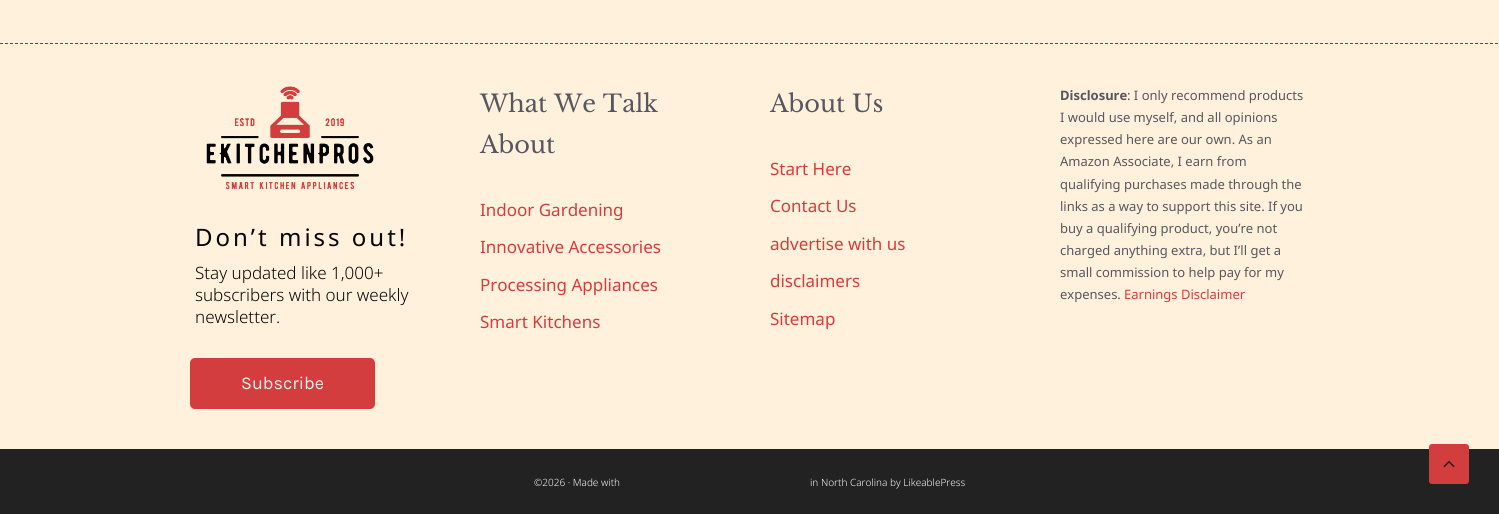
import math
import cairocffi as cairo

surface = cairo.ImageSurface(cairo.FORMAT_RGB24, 1499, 514)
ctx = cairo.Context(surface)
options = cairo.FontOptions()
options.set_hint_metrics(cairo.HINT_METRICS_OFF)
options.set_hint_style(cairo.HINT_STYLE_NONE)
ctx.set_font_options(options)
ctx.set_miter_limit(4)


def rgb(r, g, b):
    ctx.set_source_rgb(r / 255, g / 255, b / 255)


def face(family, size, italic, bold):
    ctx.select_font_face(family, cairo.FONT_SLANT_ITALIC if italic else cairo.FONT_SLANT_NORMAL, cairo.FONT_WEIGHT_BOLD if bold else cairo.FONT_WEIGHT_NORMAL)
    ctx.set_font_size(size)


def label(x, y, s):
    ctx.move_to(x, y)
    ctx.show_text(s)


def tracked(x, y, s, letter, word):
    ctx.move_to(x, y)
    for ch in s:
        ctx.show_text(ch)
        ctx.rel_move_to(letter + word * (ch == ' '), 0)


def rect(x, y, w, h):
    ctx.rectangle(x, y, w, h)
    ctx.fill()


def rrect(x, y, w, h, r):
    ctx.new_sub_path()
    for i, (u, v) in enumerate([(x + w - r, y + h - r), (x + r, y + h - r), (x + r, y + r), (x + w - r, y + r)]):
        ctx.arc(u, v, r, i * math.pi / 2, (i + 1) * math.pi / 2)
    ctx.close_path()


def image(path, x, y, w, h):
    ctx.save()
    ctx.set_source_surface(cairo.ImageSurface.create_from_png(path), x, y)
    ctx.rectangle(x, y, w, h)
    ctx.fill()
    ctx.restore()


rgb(255, 241, 219)
ctx.paint()
ctx.new_path()
ctx.move_to(0, 43.5)
ctx.line_to(1499, 43.5)
rgb(2, 112, 120)
ctx.set_line_width(1)
ctx.set_dash([3, 2])
ctx.stroke()
image('image0.png', 206, 86, 168, 104)
face('Noto Sans', 24, 0, 0)
rgb(5, 5, 5)
tracked(195, 246, 'Don’t miss out!', 3, 0)
face('Noto Sans Light', 17, 0, 0)
label(195, 279, 'Stay updated like 1,000+')
label(195, 301, 'subscribers with our weekly')
label(195, 323, 'newsletter.')
rgb(212, 61, 61)
rrect(190, 358, 185, 51, 5)
ctx.fill()
face('Karla', 18, 0, 0)
rgb(240, 240, 240)
label(241, 389, 'Subscribe')
face('Libre Baskerville', 24, 0, 0)
rgb(87, 87, 96)
label(480, 112, 'What We Talk')
label(480, 153, 'About')
face('Noto Sans', 17, 0, 0)
rgb(212, 61, 61)
label(480, 216, 'Indoor Gardening')
label(480, 253, 'Innovative Accessories')
label(480, 291, 'Processing Appliances')
label(480, 328, 'Smart Kitchens')
face('Libre Baskerville', 24, 0, 0)
rgb(87, 87, 96)
label(770, 112, 'About Us')
face('Noto Sans', 17, 0, 0)
rgb(212, 61, 61)
label(770, 175, 'Start Here')
label(770, 212, 'Contact Us')
label(770, 250, 'advertise with us')
label(770, 287, 'disclaimers')
label(770, 325, 'Sitemap')
face('Noto Sans', 13, 0, 1)
rgb(87, 87, 96)
label(1060, 100, 'Disclosure')
face('Noto Sans', 13, 0, 0)
label(1127, 100, ': I only recommend products')
label(1060, 122, 'I would use myself, and all opinions')
label(1060, 144, 'expressed here are our own. As an')
label(1060, 166, 'Amazon Associate, I earn from')
label(1060, 189, 'qualifying purchases made through the')
label(1060, 211, 'links as a way to support this site. If you')
label(1060, 233, 'buy a qualifying product, you’re not')
label(1060, 255, 'charged anything extra, but I’ll get a')
label(1060, 277, 'small commission to help pay for my')
label(1060, 299, 'expenses.')
rgb(212, 61, 61)
label(1124, 299, 'Earnings Disclaimer')
rgb(34, 34, 34)
rect(0, 449, 1499, 65)
face('Noto Sans Light', 10, 0, 0)
rgb(247, 248, 249)
label(534, 486, '©2026 · Made with')
label(810, 486, 'in North Carolina by LikeablePress')
rgb(212, 61, 61)
rrect(1429, 444, 40, 40, 3)
ctx.fill()
image('image1.png', 1443, 460, 12, 8)
surface.write_to_png('render.png')
